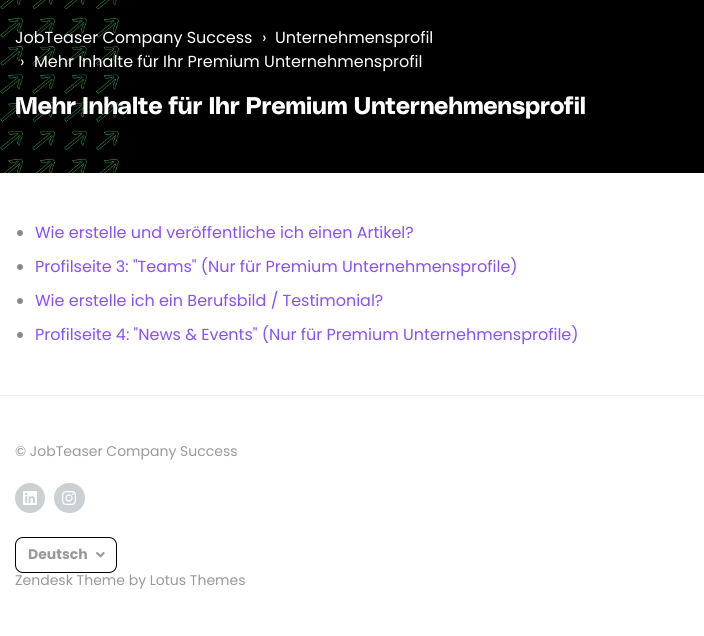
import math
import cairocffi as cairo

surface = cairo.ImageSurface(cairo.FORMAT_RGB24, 704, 636)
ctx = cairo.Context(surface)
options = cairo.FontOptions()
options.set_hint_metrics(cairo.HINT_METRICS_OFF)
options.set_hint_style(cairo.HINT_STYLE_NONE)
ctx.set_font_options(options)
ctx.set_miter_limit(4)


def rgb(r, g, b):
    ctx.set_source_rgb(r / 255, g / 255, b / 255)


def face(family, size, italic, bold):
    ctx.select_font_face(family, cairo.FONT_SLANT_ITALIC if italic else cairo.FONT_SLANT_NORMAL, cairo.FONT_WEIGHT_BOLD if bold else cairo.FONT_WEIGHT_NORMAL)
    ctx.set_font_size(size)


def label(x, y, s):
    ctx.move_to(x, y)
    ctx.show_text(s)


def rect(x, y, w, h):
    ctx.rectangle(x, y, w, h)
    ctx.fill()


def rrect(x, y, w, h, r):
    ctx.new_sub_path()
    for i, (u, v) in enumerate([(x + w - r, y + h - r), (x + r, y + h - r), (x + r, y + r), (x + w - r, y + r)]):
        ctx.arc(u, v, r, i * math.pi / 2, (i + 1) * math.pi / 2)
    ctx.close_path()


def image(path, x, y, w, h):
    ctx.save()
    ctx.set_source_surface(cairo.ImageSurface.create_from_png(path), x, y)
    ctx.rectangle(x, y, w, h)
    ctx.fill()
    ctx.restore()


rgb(255, 255, 255)
ctx.paint()
image('image0.png', 0, 0, 704, 173)
face('Poppins', 16, 0, 0)
rgb(255, 255, 255)
label(15, 43, 'JobTeaser Company Success')
label(262, 43, '›')
label(275, 43, 'Unternehmensprofil')
label(20, 67, '›')
label(34, 67, 'Mehr Inhalte für Ihr Premium Unternehmensprofil')
face('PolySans', 24, 0, 1)
label(15, 114, 'Mehr Inhalte für Ihr Premium Unternehmensprofil')
rgb(129, 138, 145)
ctx.new_path()
ctx.arc(20, 233, 3, 0, 2 * math.pi)
ctx.fill()
face('Poppins', 16, 0, 0)
rgb(136, 80, 255)
label(35, 238, 'Wie erstelle und veröffentliche ich einen Artikel?')
rgb(129, 138, 145)
ctx.new_path()
ctx.arc(20, 267, 3, 0, 2 * math.pi)
ctx.fill()
rgb(136, 80, 255)
label(35, 272, 'Profilseite 3: "Teams" (Nur für Premium Unternehmensprofile)')
rgb(129, 138, 145)
ctx.new_path()
ctx.arc(20, 301, 3, 0, 2 * math.pi)
ctx.fill()
rgb(136, 80, 255)
label(35, 306, 'Wie erstelle ich ein Berufsbild / Testimonial?')
rgb(129, 138, 145)
ctx.new_path()
ctx.arc(20, 335, 3, 0, 2 * math.pi)
ctx.fill()
rgb(136, 80, 255)
label(35, 340, 'Profilseite 4: "News & Events" (Nur für Premium Unternehmensprofile)')
rgb(236, 238, 239)
rect(0, 395, 704, 1)
face('Poppins', 14, 0, 0)
rgb(153, 153, 153)
label(15, 456, '© JobTeaser Company Success')
rgb(203, 208, 211)
ctx.new_path()
ctx.arc(30, 498, 15, 0, 2 * math.pi)
ctx.fill()
image('image1.png', 23, 491, 14, 14)
rrect(54, 483, 31, 30, 15)
ctx.fill()
image('image2.png', 62, 491, 14, 14)
rrect(15.5, 537.5, 101, 35, 7.5)
rgb(0, 0, 0)
ctx.set_line_width(1)
ctx.stroke()
face('Poppins', 14, 0, 1)
rgb(153, 153, 153)
label(28, 559, 'Deutsch')
image('image3.png', 96, 552, 9, 6)
face('Poppins', 14, 0, 0)
label(15, 585, 'Zendesk Theme by Lotus Themes')
surface.write_to_png('render.png')
